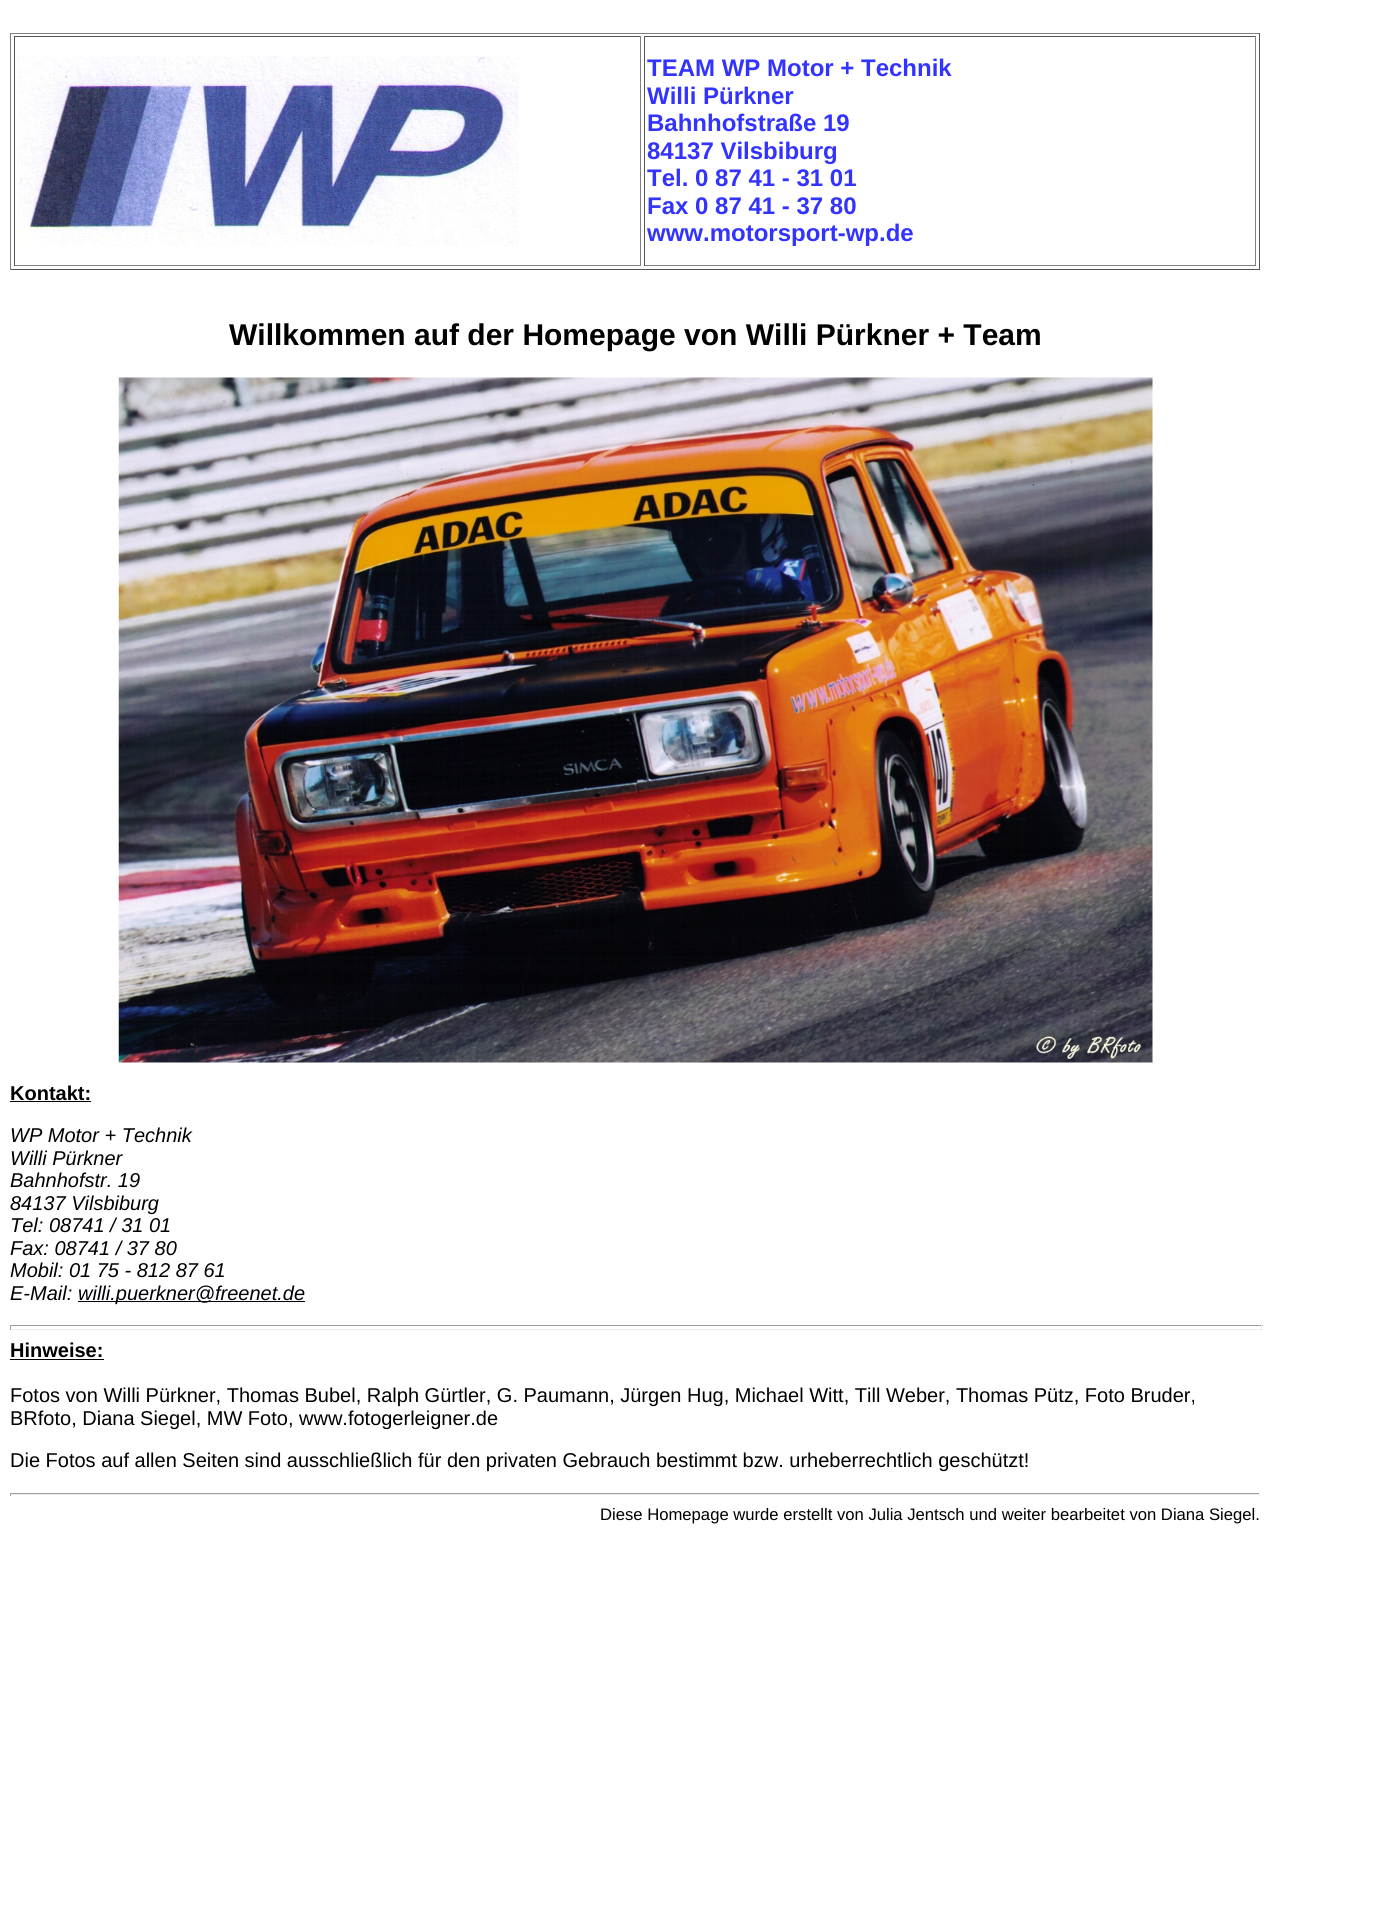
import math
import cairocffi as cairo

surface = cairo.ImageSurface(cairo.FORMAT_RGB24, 1393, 1914)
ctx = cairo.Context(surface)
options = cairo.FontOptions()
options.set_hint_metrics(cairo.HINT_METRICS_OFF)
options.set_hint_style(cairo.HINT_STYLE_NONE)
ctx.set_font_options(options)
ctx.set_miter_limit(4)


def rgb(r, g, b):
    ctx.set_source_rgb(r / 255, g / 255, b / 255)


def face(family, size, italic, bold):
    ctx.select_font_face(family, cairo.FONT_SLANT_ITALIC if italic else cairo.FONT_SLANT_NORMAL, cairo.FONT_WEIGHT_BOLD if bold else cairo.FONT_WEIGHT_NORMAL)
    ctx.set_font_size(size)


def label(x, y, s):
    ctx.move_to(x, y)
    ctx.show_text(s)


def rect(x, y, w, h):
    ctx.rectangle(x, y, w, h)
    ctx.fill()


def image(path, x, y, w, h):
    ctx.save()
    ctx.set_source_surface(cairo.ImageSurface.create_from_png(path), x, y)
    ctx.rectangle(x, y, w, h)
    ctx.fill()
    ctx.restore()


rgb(255, 255, 255)
ctx.paint()
rgb(128, 128, 128)
rect(10, 33, 1250, 1)
rgb(85, 85, 85)
rect(1259, 33, 1, 237)
rect(10, 269, 1250, 1)
rgb(128, 128, 128)
rect(10, 33, 1, 237)
rgb(85, 85, 85)
rect(14, 36, 627, 1)
rgb(128, 128, 128)
rect(640, 36, 1, 230)
rect(14, 265, 627, 1)
rgb(85, 85, 85)
rect(14, 36, 1, 230)
image('image0.png', 17, 56, 502, 191)
rect(644, 36, 612, 1)
rgb(128, 128, 128)
rect(1255, 36, 1, 230)
rect(644, 265, 612, 1)
rgb(85, 85, 85)
rect(644, 36, 1, 230)
face('Liberation Sans', 24, 0, 1)
rgb(51, 51, 255)
label(647, 76, 'TEAM WP Motor + Technik')
label(647, 104, 'Willi Pürkner')
label(647, 131, 'Bahnhofstraße 19')
label(647, 159, '84137 Vilsbiburg')
label(647, 186, 'Tel. 0 87 41 - 31 01')
label(647, 214, 'Fax 0 87 41 - 37 80')
label(647, 241, 'www.motorsport-wp.de')
face('Liberation Sans', 30, 0, 1)
rgb(0, 0, 0)
label(229, 345, 'Willkommen auf der Homepage von Willi Pürkner + Team')
image('image1.png', 118, 377, 1035, 686)
face('Liberation Sans', 20, 0, 1)
label(10, 1100, 'Kontakt:')
rect(10, 1101, 81, 1)
face('Liberation Sans', 20, 1, 0)
label(10, 1142, 'WP Motor + Technik')
label(10, 1165, 'Willi Pürkner')
label(10, 1187, 'Bahnhofstr. 19')
label(10, 1210, '84137 Vilsbiburg')
label(10, 1232, 'Tel: 08741 / 31 01')
label(10, 1255, 'Fax: 08741 / 37 80')
label(10, 1277, 'Mobil: 01 75 - 812 87 61')
label(10, 1300, 'E-Mail:')
rgb(0, 0, 7)
rect(78, 1301, 227, 1)
label(78, 1300, 'willi.puerkner@freenet.de')
rgb(159, 159, 159)
rect(10, 1325, 1253, 1)
rgb(238, 238, 238)
rect(1261, 1325, 1, 5)
rect(10, 1329, 1253, 1)
rgb(159, 159, 159)
rect(10, 1325, 1, 5)
face('Liberation Sans', 20, 0, 1)
rgb(0, 0, 0)
label(10, 1357, 'Hinweise:')
rect(10, 1359, 94, 1)
face('Liberation Sans', 20, 0, 0)
label(10, 1402, 'Fotos von Willi Pürkner, Thomas Bubel, Ralph Gürtler, G. Paumann, Jürgen Hug, Michael Witt, Till Weber, Thomas Pütz, Foto Bruder,')
label(10, 1425, 'BRfoto, Diana Siegel, MW Foto, www.fotogerleigner.de')
label(10, 1467, 'Die Fotos auf allen Seiten sind ausschließlich für den privaten Gebrauch bestimmt bzw. urheberrechtlich geschützt!')
rgb(159, 159, 159)
rect(10, 1493, 1250, 1)
rgb(238, 238, 238)
rect(1259, 1493, 1, 3)
rect(10, 1494, 1250, 1)
rgb(159, 159, 159)
rect(10, 1493, 1, 3)
face('Liberation Sans', 16.65, 0, 0)
rgb(0, 0, 0)
label(600, 1520, 'Diese Homepage wurde erstellt von Julia Jentsch und weiter bearbeitet von Diana Siegel.')
surface.write_to_png('render.png')
